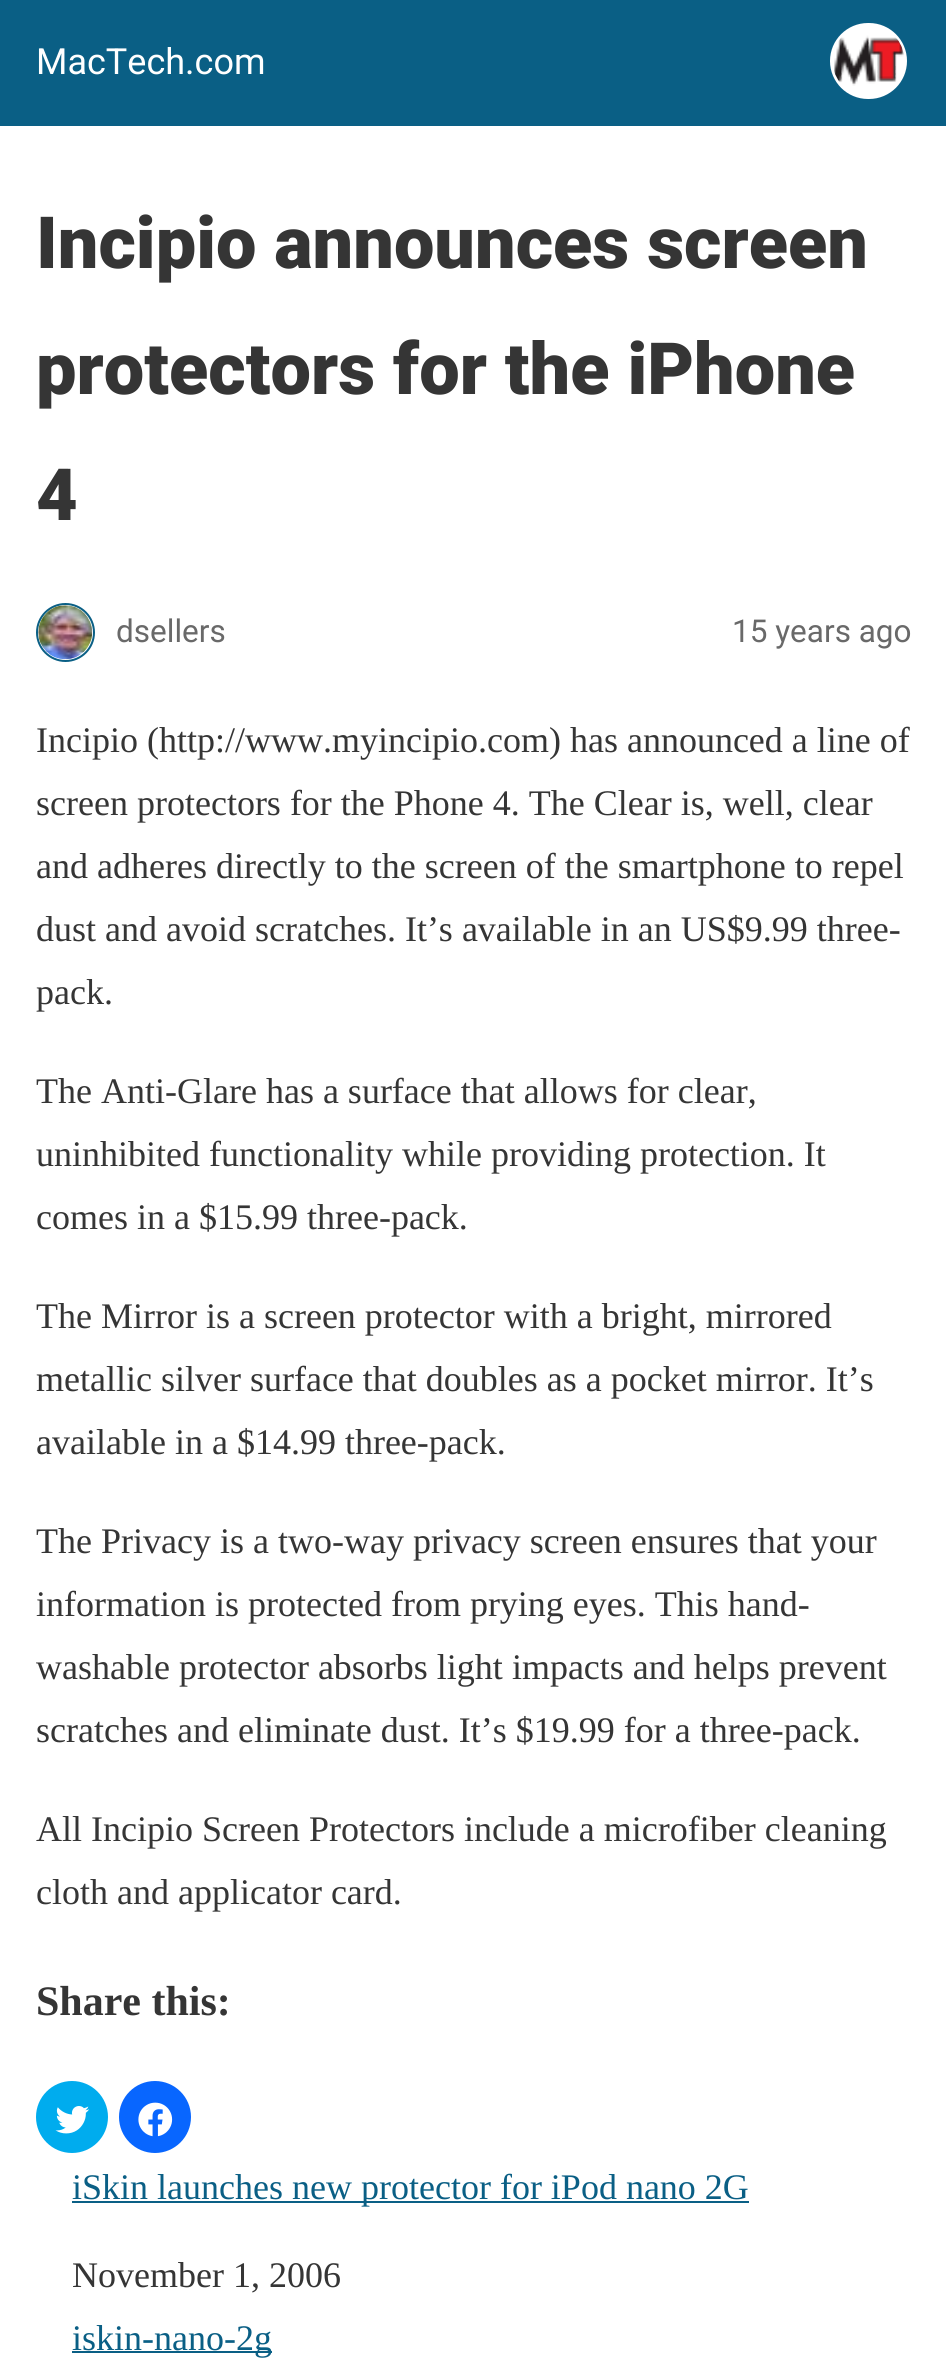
import math
import cairocffi as cairo

surface = cairo.ImageSurface(cairo.FORMAT_RGB24, 946, 2371)
ctx = cairo.Context(surface)
options = cairo.FontOptions()
options.set_hint_metrics(cairo.HINT_METRICS_OFF)
options.set_hint_style(cairo.HINT_STYLE_NONE)
ctx.set_font_options(options)
ctx.set_miter_limit(4)


def rgb(r, g, b):
    ctx.set_source_rgb(r / 255, g / 255, b / 255)


def face(family, size, italic, bold):
    ctx.select_font_face(family, cairo.FONT_SLANT_ITALIC if italic else cairo.FONT_SLANT_NORMAL, cairo.FONT_WEIGHT_BOLD if bold else cairo.FONT_WEIGHT_NORMAL)
    ctx.set_font_size(size)


def label(x, y, s):
    ctx.move_to(x, y)
    ctx.show_text(s)


def rect(x, y, w, h):
    ctx.rectangle(x, y, w, h)
    ctx.fill()


def rrect(x, y, w, h, r):
    ctx.new_sub_path()
    for i, (u, v) in enumerate([(x + w - r, y + h - r), (x + r, y + h - r), (x + r, y + r), (x + w - r, y + r)]):
        ctx.arc(u, v, r, i * math.pi / 2, (i + 1) * math.pi / 2)
    ctx.close_path()


def image(path, x, y, w, h):
    ctx.save()
    ctx.set_source_surface(cairo.ImageSurface.create_from_png(path), x, y)
    ctx.rectangle(x, y, w, h)
    ctx.fill()
    ctx.restore()


rgb(255, 255, 255)
ctx.paint()
rgb(10, 95, 133)
rect(0, 0, 946, 126)
face('Roboto', 36, 0, 0)
rgb(255, 255, 255)
label(36, 74, 'MacTech.com')
rrect(831, 24, 75, 74, 37)
ctx.fill_preserve()
ctx.stroke()
image('image0.png', 834, 35, 70, 51)
face('Roboto Black', 72, 0, 0)
rgb(53, 53, 53)
label(36, 268, 'Incipio announces screen')
label(36, 394, 'protectors for the iPhone')
label(36, 520, '4')
ctx.new_path()
ctx.arc(65.5, 632.5, 28.5, 0, 2 * math.pi)
rgb(10, 95, 133)
ctx.stroke()
image('image1.png', 38, 605, 55, 55)
face('Roboto', 31.5, 0, 0)
rgb(105, 105, 105)
label(116, 642, 'dsellers')
label(732, 642, '15 years ago')
face('Liberation Serif', 36, 0, 0)
rgb(53, 53, 53)
label(36, 752, 'Incipio (http://www.myincipio.com) has announced a line of')
label(36, 815, 'screen protectors for the Phone 4. The Clear is, well, clear')
label(36, 878, 'and adheres directly to the screen of the smartphone to repel')
label(36, 941, 'dust and avoid scratches. It’s available in an US$9.99 three-')
label(36, 1004, 'pack.')
label(36, 1103, 'The Anti-Glare has a surface that allows for clear,')
label(36, 1166, 'uninhibited functionality while providing protection. It')
label(36, 1229, 'comes in a $15.99 three-pack.')
label(36, 1328, 'The Mirror is a screen protector with a bright, mirrored')
label(36, 1391, 'metallic silver surface that doubles as a pocket mirror. It’s')
label(36, 1454, 'available in a $14.99 three-pack.')
label(36, 1553, 'The Privacy is a two-way privacy screen ensures that your')
label(36, 1616, 'information is protected from prying eyes. This hand-')
label(36, 1679, 'washable protector absorbs light impacts and helps prevent')
label(36, 1742, 'scratches and eliminate dust. It’s $19.99 for a three-pack.')
label(36, 1841, 'All Incipio Screen Protectors include a microfiber cleaning')
label(36, 1904, 'cloth and applicator card.')
face('Liberation Serif', 42, 0, 1)
label(36, 2015, 'Share this:')
rgb(0, 172, 238)
ctx.new_path()
ctx.arc(72, 2117, 36, 0, 2 * math.pi)
ctx.fill()
image('image2.png', 55, 2106, 35, 28)
rgb(8, 102, 255)
ctx.arc(155, 2117, 36, 0, 2 * math.pi)
ctx.fill()
image('image3.png', 138, 2102, 35, 35)
rgb(10, 95, 133)
rect(72, 2201, 677, 2)
face('Liberation Serif', 36, 0, 0)
label(72, 2199, 'iSkin launches new protector for iPod nano 2G')
rgb(53, 53, 53)
label(72, 2287, 'November 1, 2006')
rgb(10, 95, 133)
rect(72, 2351, 200, 2)
label(72, 2350, 'iskin-nano-2g')
surface.write_to_png('render.png')
